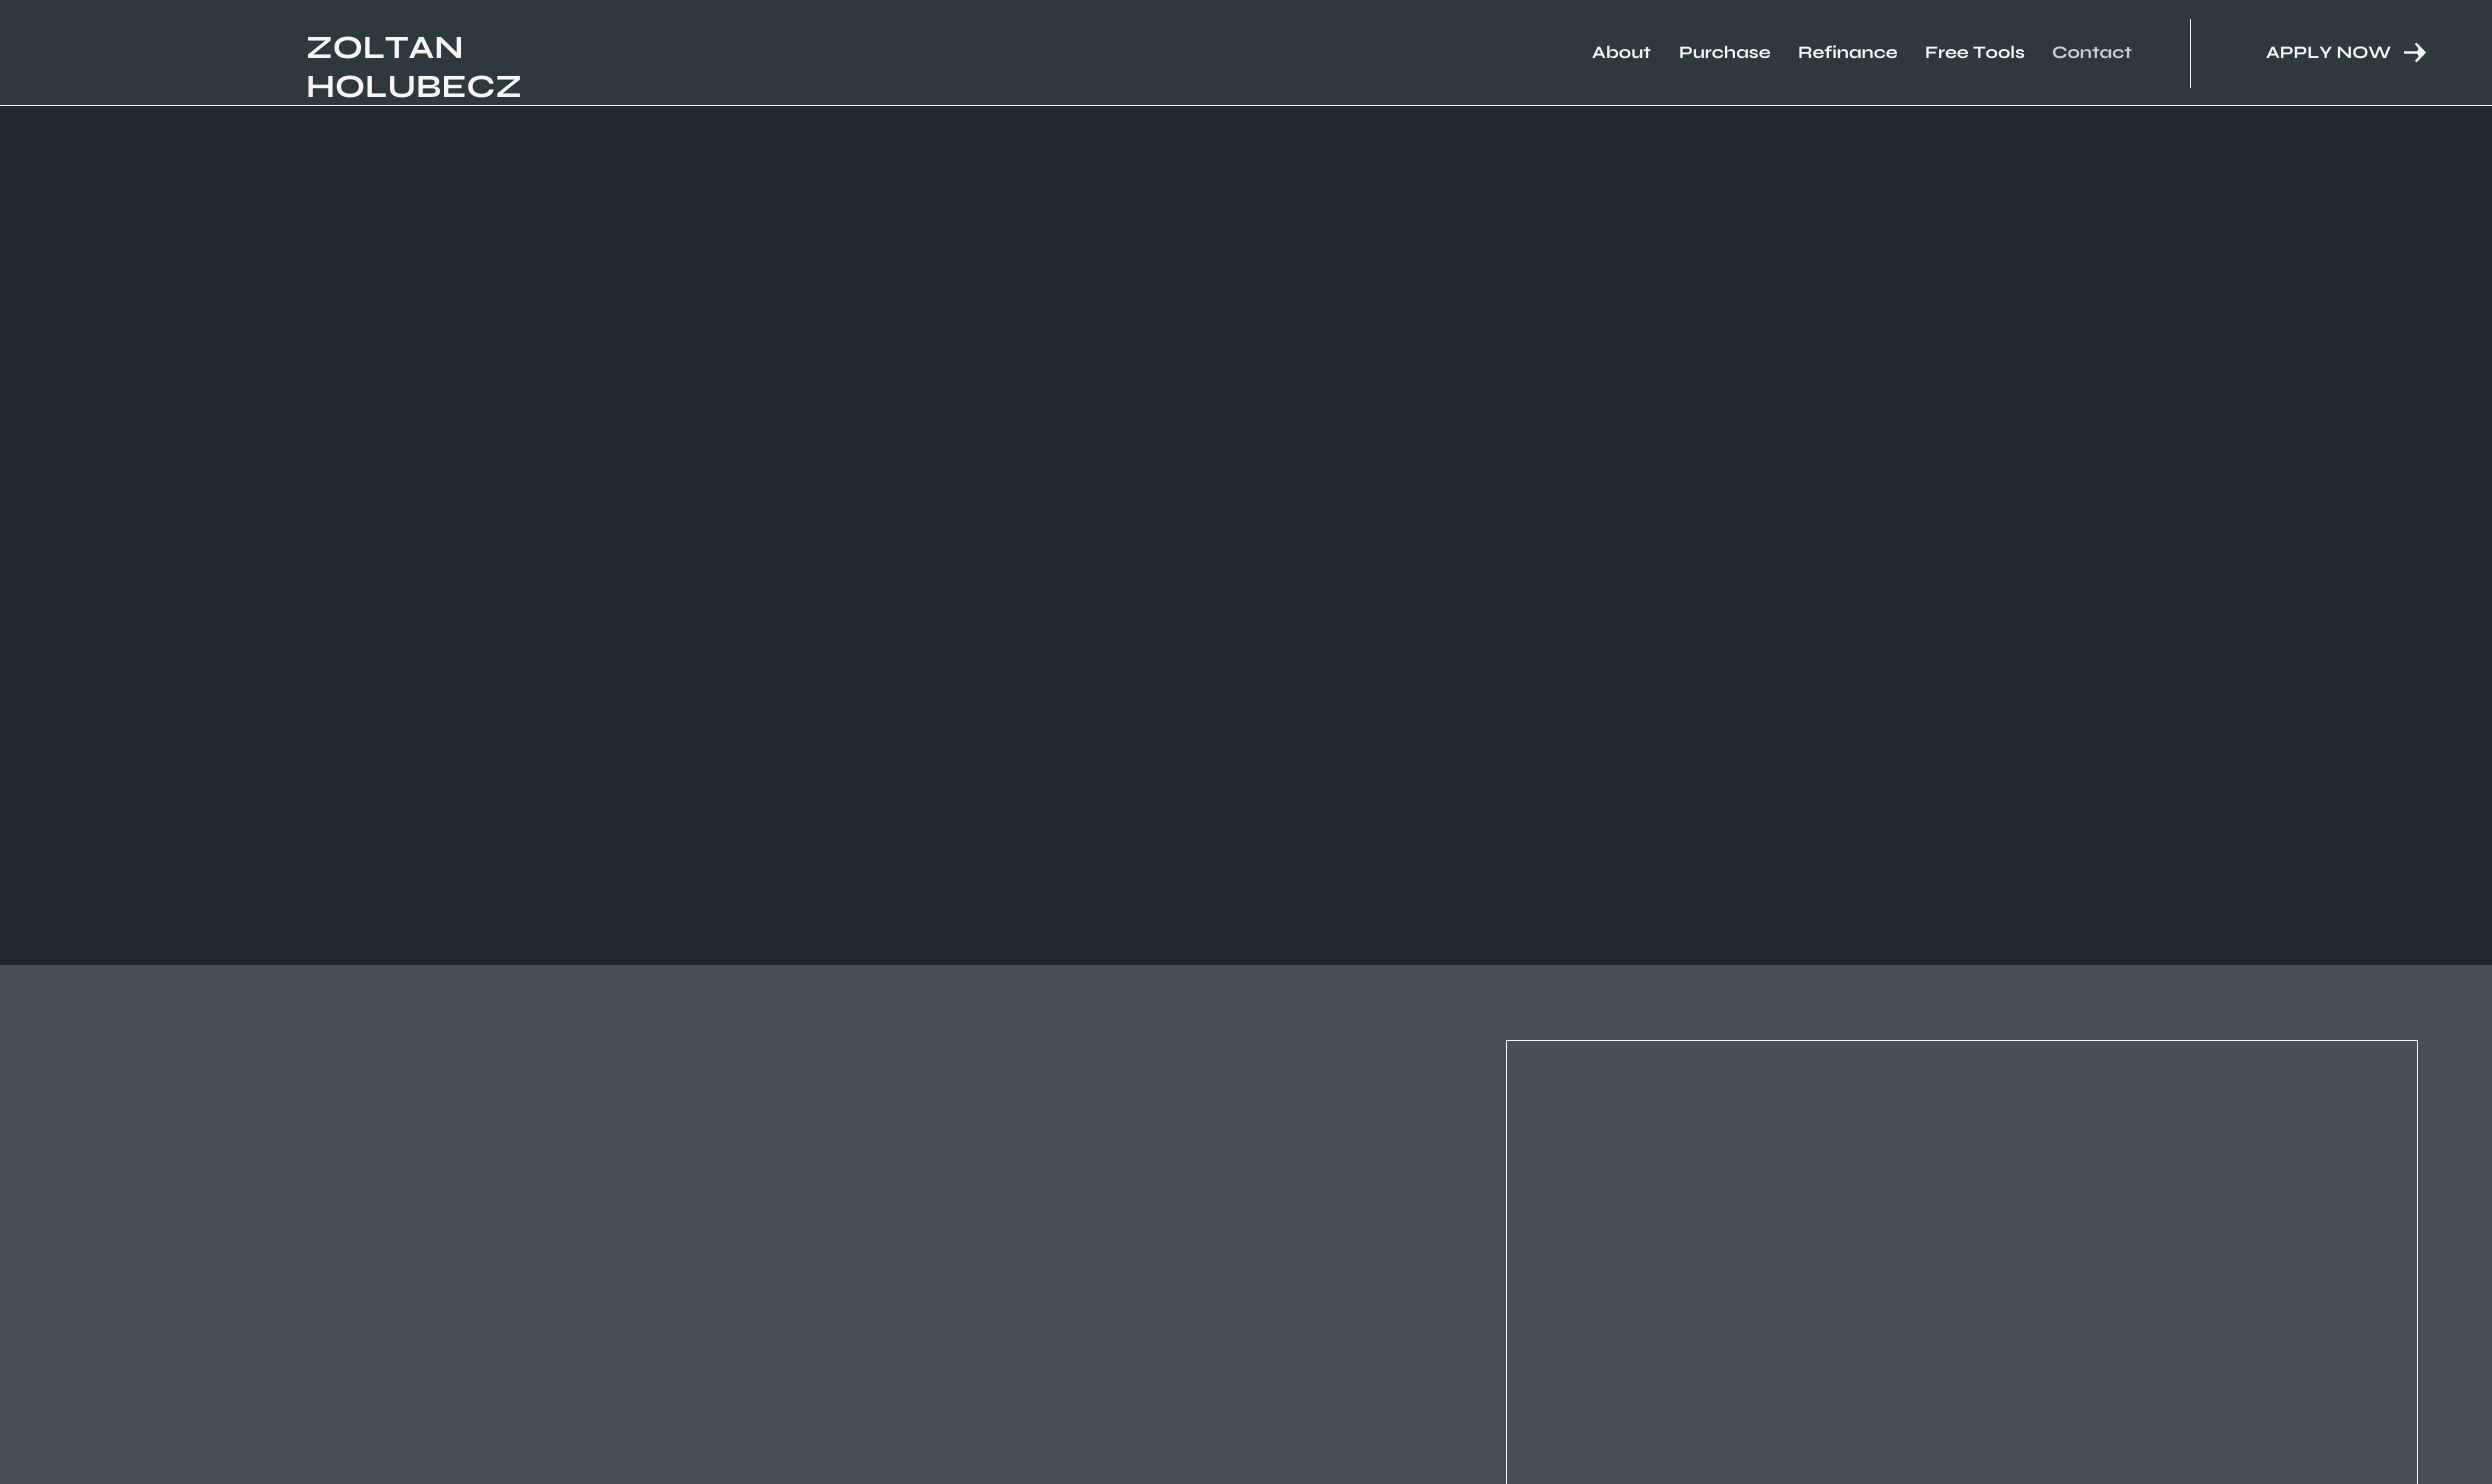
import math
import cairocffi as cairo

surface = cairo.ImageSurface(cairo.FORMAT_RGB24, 2492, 1484)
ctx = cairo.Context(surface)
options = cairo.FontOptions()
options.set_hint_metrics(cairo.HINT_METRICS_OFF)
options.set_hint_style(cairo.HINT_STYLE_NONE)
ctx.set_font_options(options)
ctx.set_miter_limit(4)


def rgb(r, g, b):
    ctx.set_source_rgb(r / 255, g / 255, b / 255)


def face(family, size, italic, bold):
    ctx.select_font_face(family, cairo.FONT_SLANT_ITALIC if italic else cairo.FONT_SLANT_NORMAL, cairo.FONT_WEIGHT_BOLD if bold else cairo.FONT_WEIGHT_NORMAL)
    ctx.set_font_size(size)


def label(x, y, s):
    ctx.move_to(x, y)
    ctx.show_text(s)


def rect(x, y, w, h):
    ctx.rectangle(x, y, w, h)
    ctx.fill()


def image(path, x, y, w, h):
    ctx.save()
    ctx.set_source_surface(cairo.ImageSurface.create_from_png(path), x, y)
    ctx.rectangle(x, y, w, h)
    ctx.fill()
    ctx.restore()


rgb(28, 39, 46)
ctx.paint()
rgb(45, 56, 63)
rect(0, 0, 2492, 105)
face('Syne', 32.5, 0, 1)
rgb(247, 245, 245)
label(306, 58, 'ZOLTAN')
label(306, 97, 'HOLUBECZ')
face('Syne', 17.5, 0, 1)
label(1592, 58, 'About')
label(1679, 58, 'Purchase')
label(1798, 58, 'Refinance')
label(1925, 58, 'Free Tools')
rgb(197, 207, 213)
label(2052, 58, 'Contact')
rgb(247, 245, 245)
rect(2190, 19, 1, 69)
label(2266, 58, 'APPLY NOW')
image('image0.png', 2404, 42, 22, 21)
rect(0, 105, 2492, 1)
rgb(71, 81, 88)
rect(0, 965, 2492, 519)
ctx.rectangle(1506.5, 1040.5, 911, 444)
rgb(247, 245, 245)
ctx.set_line_width(1)
ctx.stroke()
surface.write_to_png('render.png')
